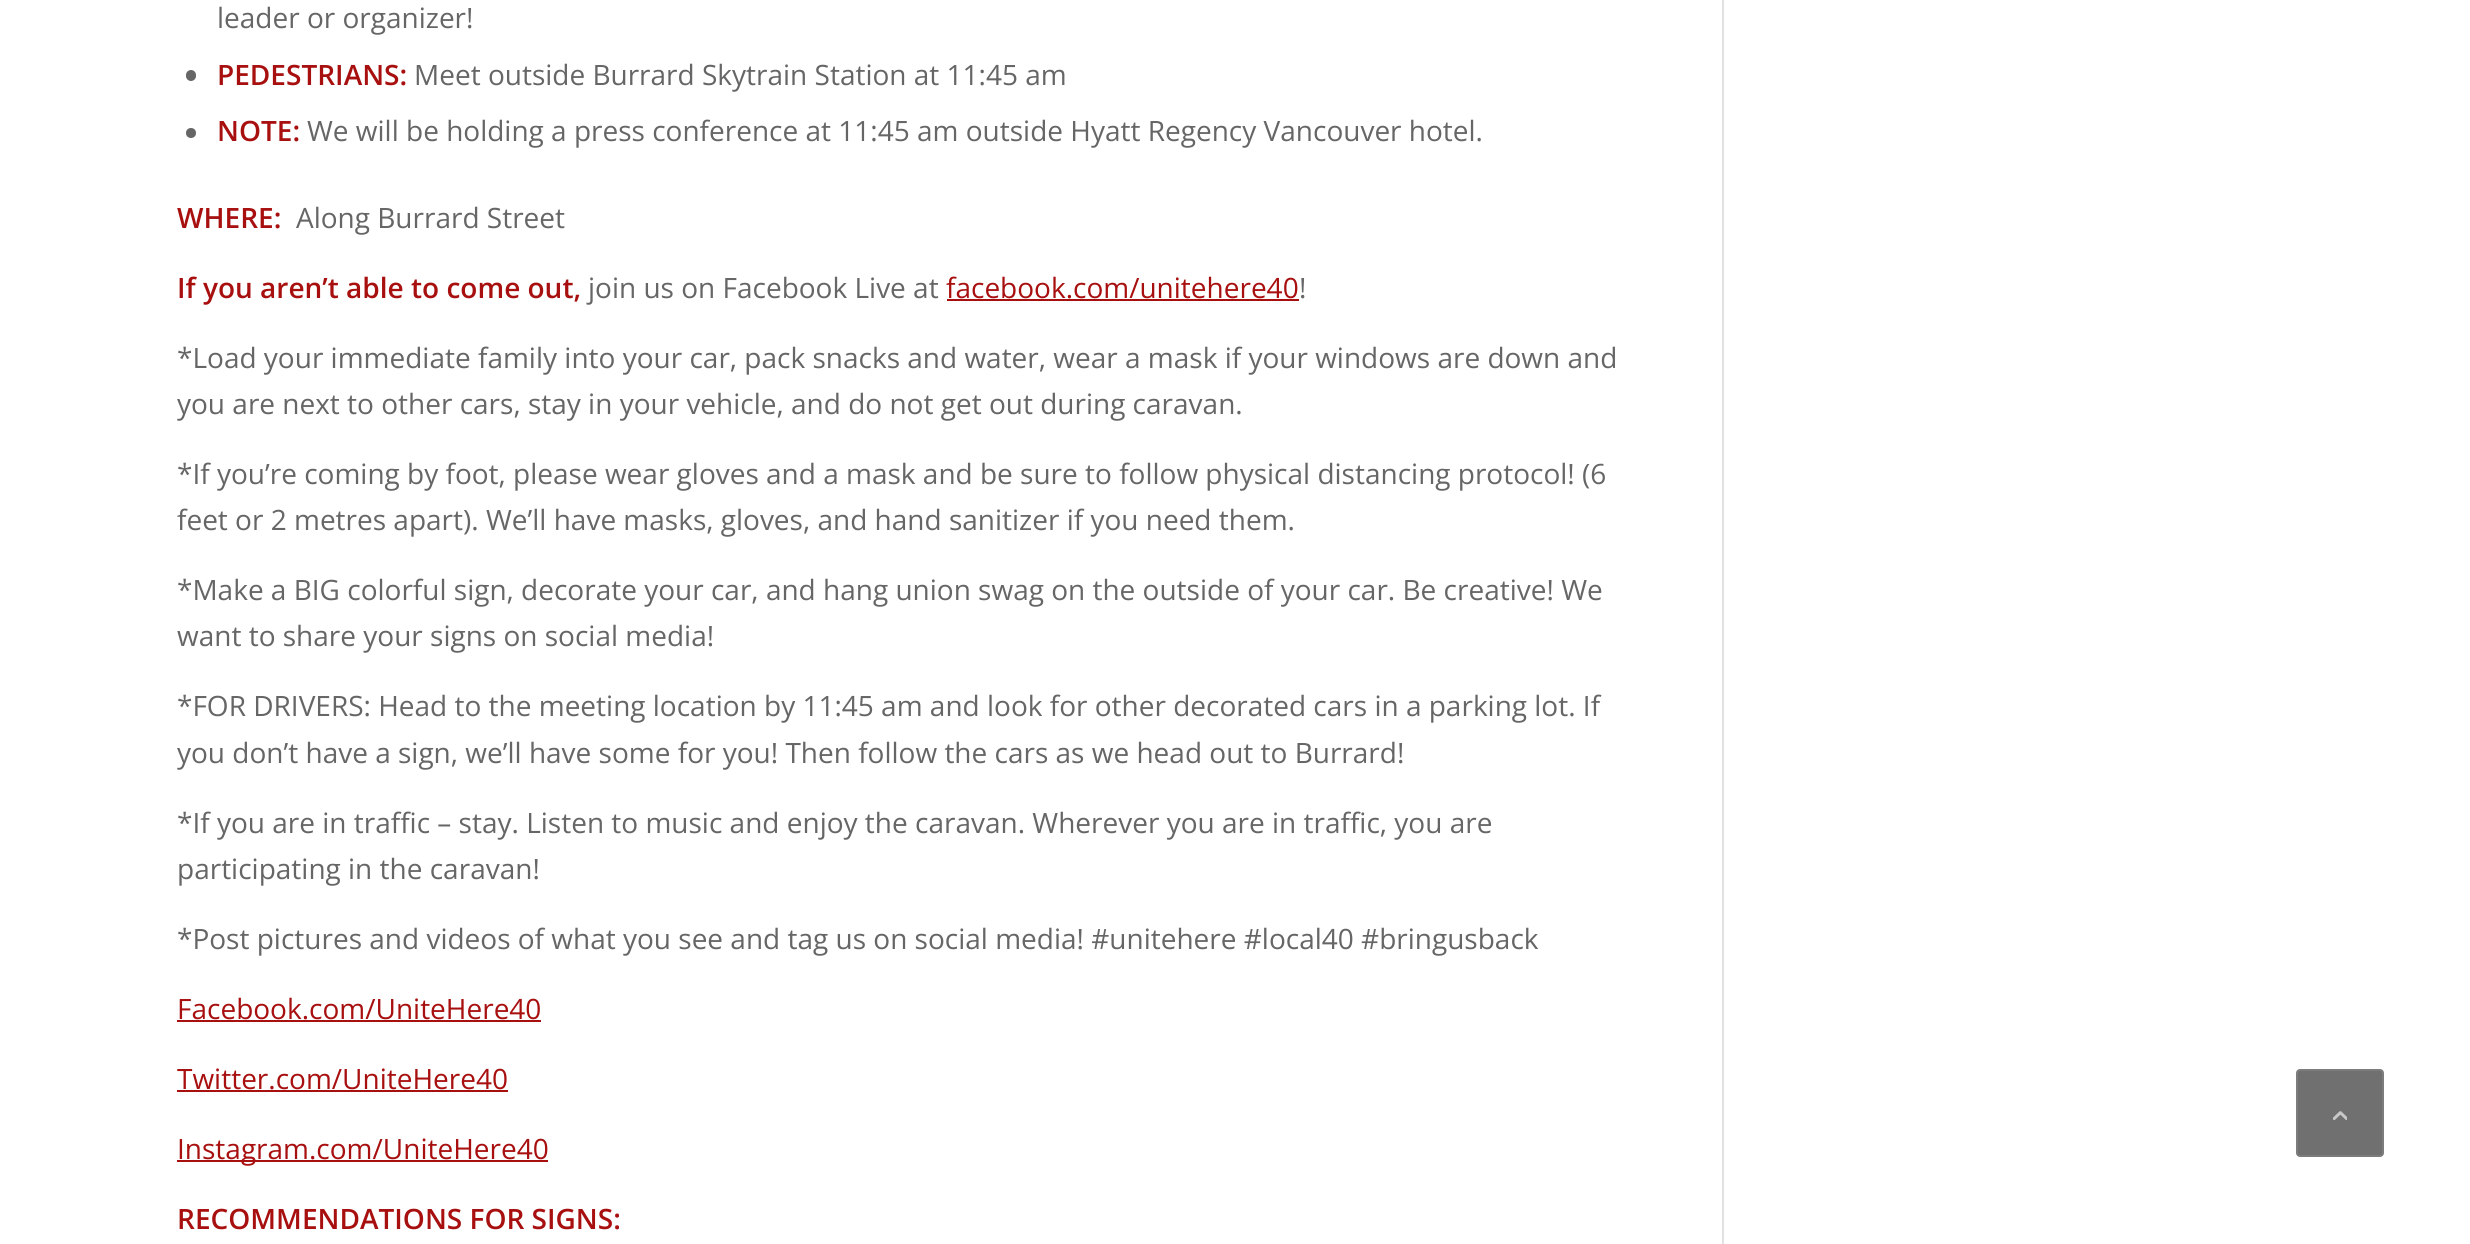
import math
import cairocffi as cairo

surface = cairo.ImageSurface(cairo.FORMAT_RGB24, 2470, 1244)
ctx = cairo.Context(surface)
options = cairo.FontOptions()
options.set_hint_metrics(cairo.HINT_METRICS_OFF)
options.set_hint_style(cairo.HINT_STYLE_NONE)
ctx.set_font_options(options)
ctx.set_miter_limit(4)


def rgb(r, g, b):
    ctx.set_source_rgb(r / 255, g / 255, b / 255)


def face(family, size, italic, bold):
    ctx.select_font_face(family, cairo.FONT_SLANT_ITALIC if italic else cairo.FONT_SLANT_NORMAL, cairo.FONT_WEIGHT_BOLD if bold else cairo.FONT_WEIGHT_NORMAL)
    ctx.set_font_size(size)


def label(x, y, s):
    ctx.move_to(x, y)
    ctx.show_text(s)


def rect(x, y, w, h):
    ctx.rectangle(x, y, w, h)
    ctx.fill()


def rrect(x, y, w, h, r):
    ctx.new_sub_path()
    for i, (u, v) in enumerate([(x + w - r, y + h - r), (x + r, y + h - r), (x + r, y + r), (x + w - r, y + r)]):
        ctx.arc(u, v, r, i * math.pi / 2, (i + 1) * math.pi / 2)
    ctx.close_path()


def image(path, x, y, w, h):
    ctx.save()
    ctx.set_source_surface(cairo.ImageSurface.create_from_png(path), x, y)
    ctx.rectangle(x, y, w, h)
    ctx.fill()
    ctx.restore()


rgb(255, 255, 255)
ctx.paint()
rgb(225, 225, 225)
rect(1722, 0, 2, 1244)
face('Open Sans', 28, 0, 0)
rgb(102, 102, 102)
label(217, 28, 'leader or organizer!')
rrect(186, 70, 10, 11, 5)
ctx.fill()
face('Open Sans SemiBold', 28, 0, 0)
rgb(168, 16, 16)
label(217, 85, 'PEDESTRIANS:')
face('Open Sans', 28, 0, 0)
rgb(102, 102, 102)
label(414, 85, 'Meet outside Burrard Skytrain Station at 11:45 am')
ctx.new_path()
ctx.arc(191, 133, 5, 0, 2 * math.pi)
ctx.fill()
face('Open Sans SemiBold', 28, 0, 0)
rgb(168, 16, 16)
label(217, 141, 'NOTE:')
face('Open Sans', 28, 0, 0)
rgb(102, 102, 102)
label(307, 141, 'We will be holding a press conference at 11:45 am outside Hyatt Regency Vancouver hotel.')
face('Open Sans SemiBold', 28, 0, 0)
rgb(168, 16, 16)
label(177, 228, 'WHERE:')
face('Open Sans', 28, 0, 0)
rgb(102, 102, 102)
label(296, 228, 'Along Burrard Street')
face('Open Sans SemiBold', 28, 0, 0)
rgb(168, 16, 16)
label(177, 298, 'If you aren’t able to come out,')
face('Open Sans', 28, 0, 0)
rgb(102, 102, 102)
label(588, 298, 'join us on Facebook Live at')
rgb(168, 16, 16)
label(946, 298, 'facebook.com/unitehere40')
rect(947, 299, 352, 2)
rgb(102, 102, 102)
label(1299, 298, '!')
label(177, 368, '*Load your immediate family into your car, pack snacks and water, wear a mask if your windows are down and')
label(177, 414, 'you are next to other cars, stay in your vehicle, and do not get out during caravan.')
label(177, 484, '*If you’re coming by foot, please wear gloves and a mask and be sure to follow physical distancing protocol! (6')
label(177, 530, 'feet or 2 metres apart). We’ll have masks, gloves, and hand sanitizer if you need them.')
label(177, 600, '*Make a BIG colorful sign, decorate your car, and hang union swag on the outside of your car. Be creative! We')
label(177, 646, 'want to share your signs on social media!')
label(177, 716, '*FOR DRIVERS: Head to the meeting location by 11:45 am and look for other decorated cars in a parking lot. If')
label(177, 763, 'you don’t have a sign, we’ll have some for you! Then follow the cars as we head out to Burrard!')
label(177, 833, '*If you are in traffic – stay. Listen to music and enjoy the caravan. Wherever you are in traffic, you are')
label(177, 879, 'participating in the caravan!')
label(177, 949, '*Post pictures and videos of what you see and tag us on social media! #unitehere #local40 #bringusback')
rgb(168, 16, 16)
label(177, 1019, 'Facebook.com/UniteHere40')
rect(177, 1020, 364, 2)
label(177, 1089, 'Twitter.com/UniteHere40')
rect(177, 1090, 331, 2)
rect(177, 1160, 371, 2)
label(177, 1159, 'Instagram.com/UniteHere40')
face('Open Sans SemiBold', 28, 0, 0)
label(177, 1229, 'RECOMMENDATIONS FOR SIGNS:')
rgb(112, 112, 112)
rrect(2297, 1070, 86, 86, 3)
ctx.fill_preserve()
rgb(124, 124, 124)
ctx.stroke()
image('image0.png', 2333, 1111, 14, 10)
surface.write_to_png('render.png')
